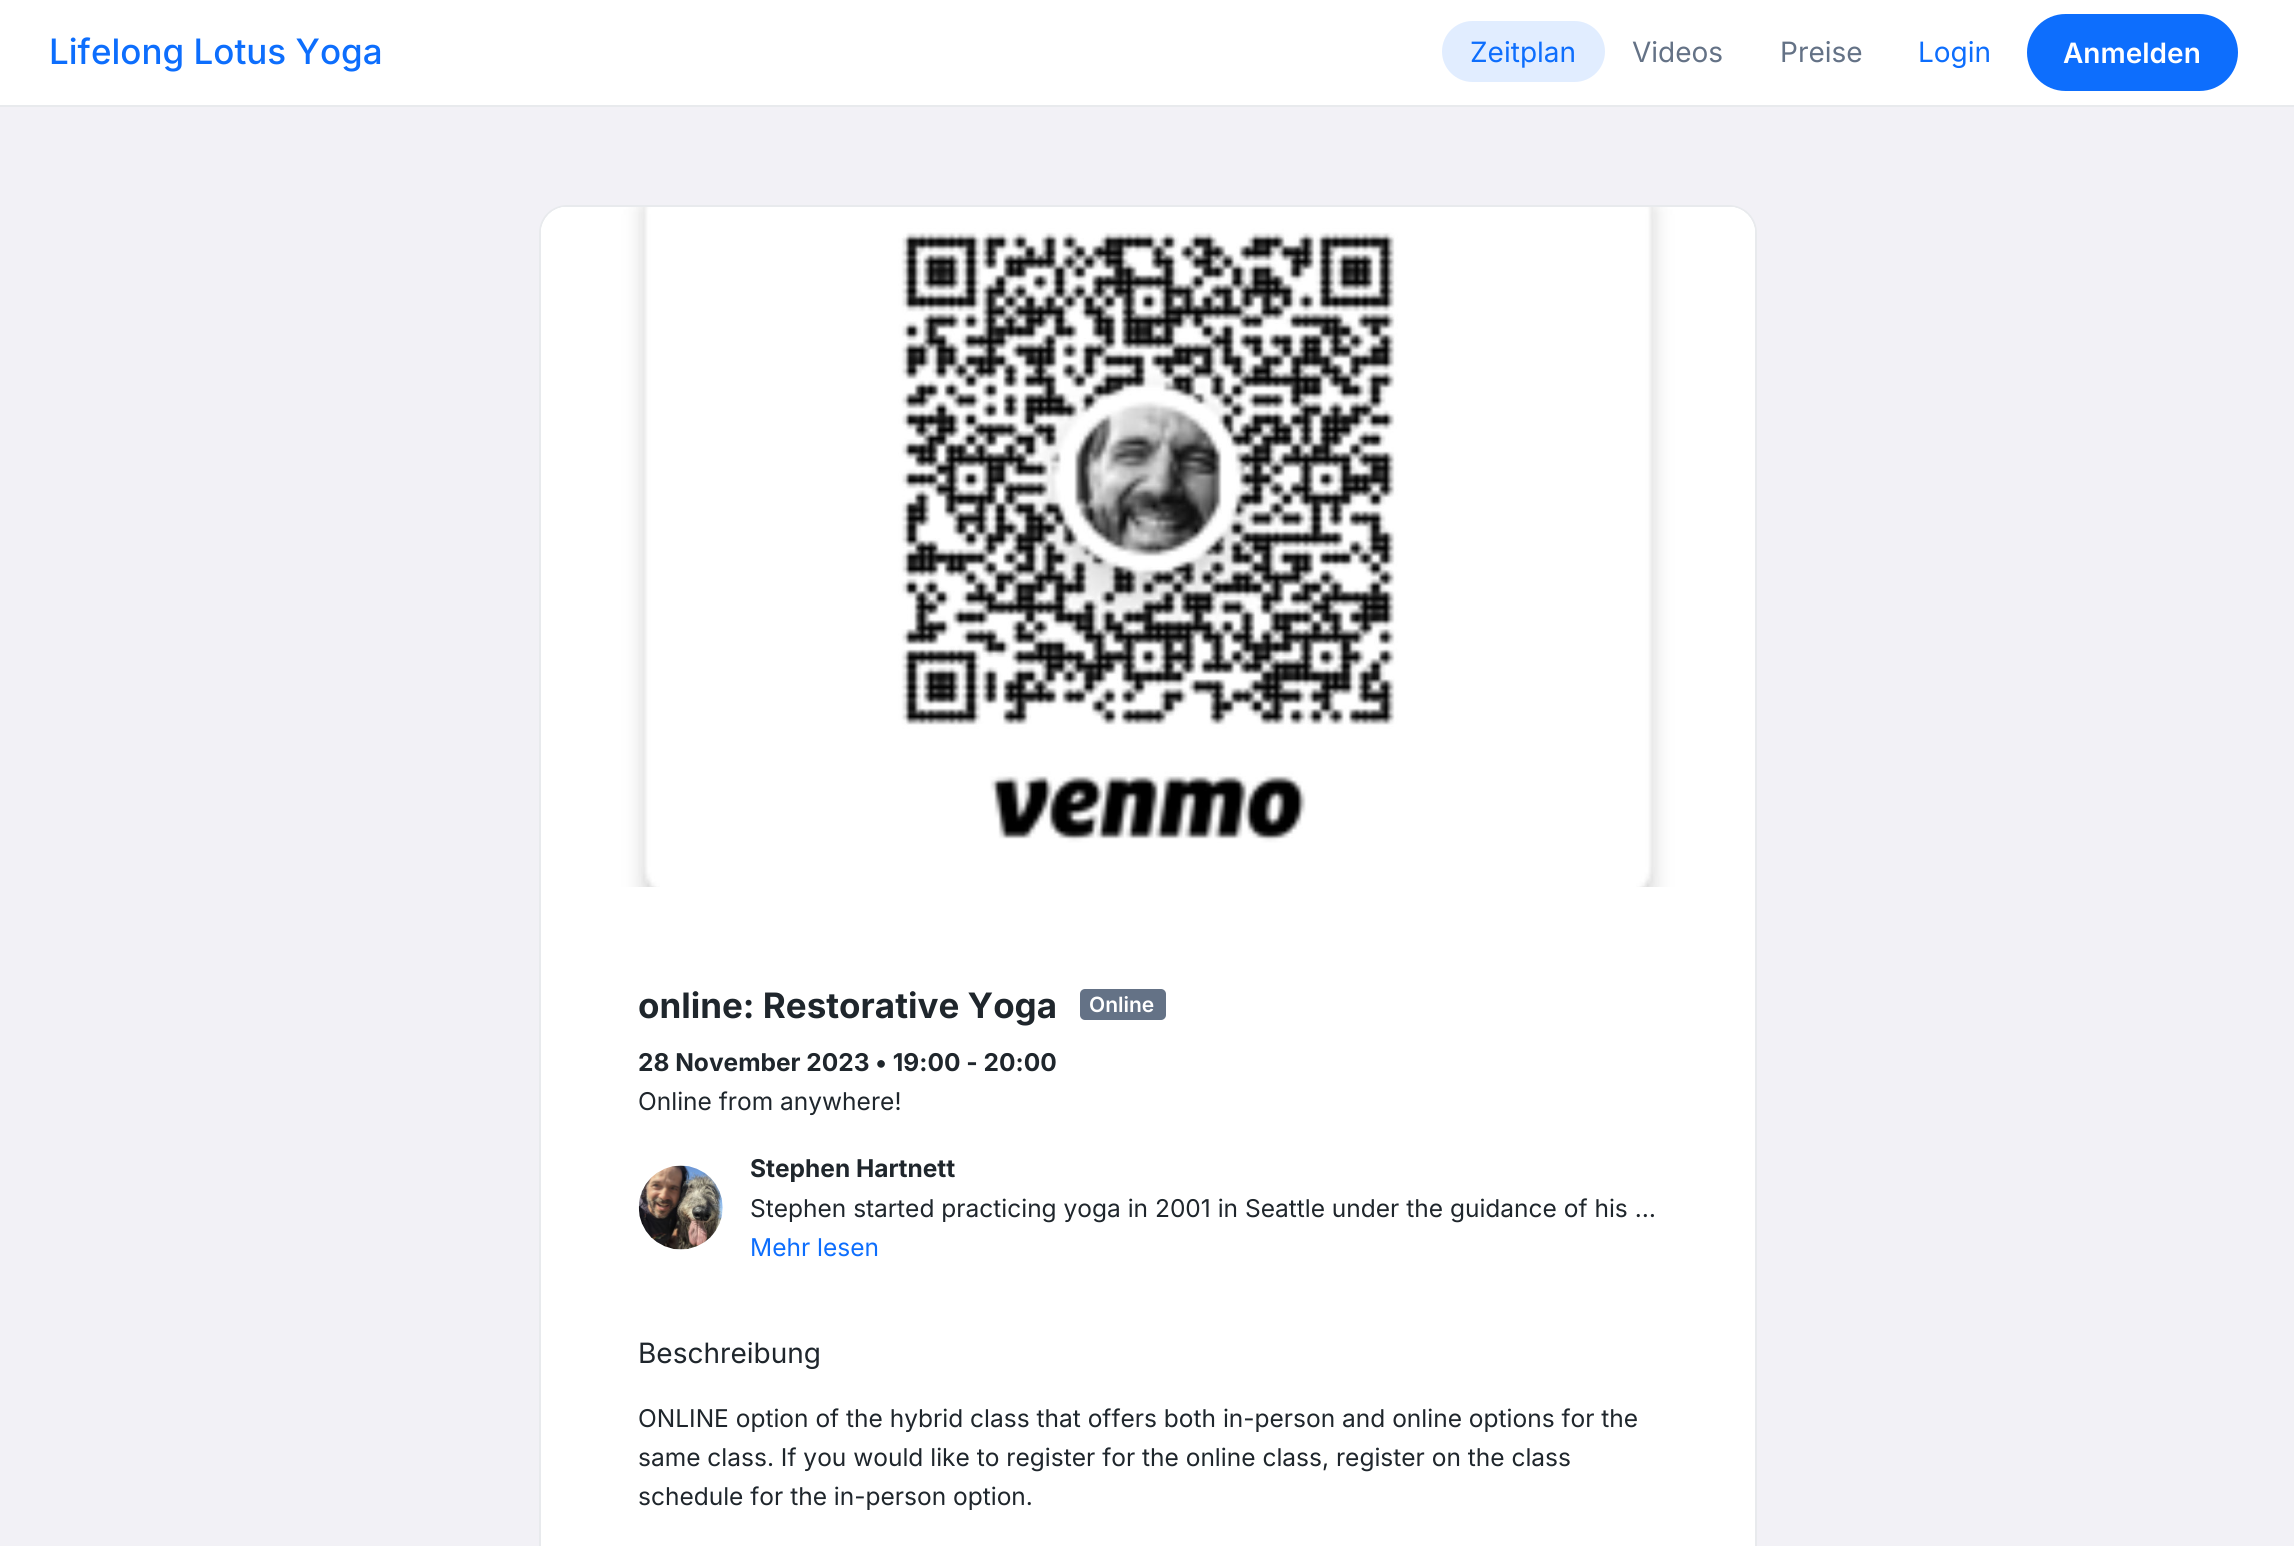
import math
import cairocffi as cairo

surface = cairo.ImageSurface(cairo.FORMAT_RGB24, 2294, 1546)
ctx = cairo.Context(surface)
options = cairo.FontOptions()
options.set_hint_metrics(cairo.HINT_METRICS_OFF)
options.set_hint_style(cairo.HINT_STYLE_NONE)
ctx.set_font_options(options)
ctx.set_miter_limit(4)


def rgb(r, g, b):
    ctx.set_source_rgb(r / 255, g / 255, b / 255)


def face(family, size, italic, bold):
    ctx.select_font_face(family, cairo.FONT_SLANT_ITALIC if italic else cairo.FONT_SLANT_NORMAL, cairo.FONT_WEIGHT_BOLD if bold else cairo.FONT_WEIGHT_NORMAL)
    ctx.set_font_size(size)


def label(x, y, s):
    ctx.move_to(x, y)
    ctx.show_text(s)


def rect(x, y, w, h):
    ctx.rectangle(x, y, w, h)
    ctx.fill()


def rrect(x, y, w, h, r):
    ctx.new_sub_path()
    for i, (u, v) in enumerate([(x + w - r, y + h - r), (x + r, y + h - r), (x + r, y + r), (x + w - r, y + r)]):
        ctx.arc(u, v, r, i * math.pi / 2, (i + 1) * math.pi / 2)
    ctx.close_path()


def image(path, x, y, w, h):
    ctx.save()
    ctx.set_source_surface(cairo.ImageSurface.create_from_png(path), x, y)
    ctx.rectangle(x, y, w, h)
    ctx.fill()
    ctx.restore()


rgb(242, 241, 246)
ctx.paint()
rgb(255, 255, 255)
rect(0, 0, 2294, 105)
rgb(232, 234, 237)
rect(0, 105, 2294, 2)
face('Inter Medium', 35, 0, 0)
rgb(13, 110, 253)
label(49, 64, 'Lifelong Lotus Yoga')
rgb(225, 237, 255)
rrect(1442, 21, 163, 61, 30.5)
ctx.fill()
face('Inter', 28, 0, 0)
rgb(13, 110, 253)
label(1470, 62, 'Zeitplan')
rgb(100, 114, 134)
label(1632, 62, 'Videos')
label(1780, 62, 'Preise')
rgb(13, 110, 253)
label(1918, 62, 'Login')
rrect(2029, 16, 207, 73, 36.5)
ctx.fill_preserve()
ctx.set_line_width(4)
ctx.stroke()
face('Inter SemiBold', 28, 0, 0)
rgb(255, 255, 255)
label(2063, 63, 'Anmelden')
rrect(540, 206, 1216, 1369, 27)
ctx.fill_preserve()
rgb(232, 234, 237)
ctx.set_line_width(2)
ctx.stroke()
image('image0.png', 541, 207, 1214, 680)
face('Inter', 35, 0, 1)
rgb(31, 38, 44)
label(638, 1018, 'online: Restorative Yoga')
rgb(100, 114, 134)
rrect(1080, 989, 86, 31, 5)
ctx.fill()
face('Inter SemiBold', 21, 0, 0)
rgb(255, 255, 255)
label(1089, 1012, 'Online')
face('Inter', 24.5, 0, 1)
rgb(31, 38, 44)
label(638, 1071, '28 November 2023 • 19:00 - 20:00')
face('Inter', 24.5, 0, 0)
label(638, 1110, 'Online from anywhere!')
image('image1.png', 638, 1165, 85, 85)
face('Inter', 24.5, 0, 1)
label(750, 1177, 'Stephen Hartnett')
face('Inter', 24.5, 0, 0)
label(750, 1217, 'Stephen started practicing yoga in 2001 in Seattle under the guidance of his …')
rgb(13, 110, 253)
label(750, 1256, 'Mehr lesen')
face('Inter', 28, 0, 0)
rgb(31, 38, 44)
label(638, 1363, 'Beschreibung')
face('Inter', 24.5, 0, 0)
label(638, 1427, 'ONLINE option of the hybrid class that offers both in-person and online options for the')
label(638, 1466, 'same class. If you would like to register for the online class, register on the class')
label(638, 1505, 'schedule for the in-person option.')
surface.write_to_png('render.png')
